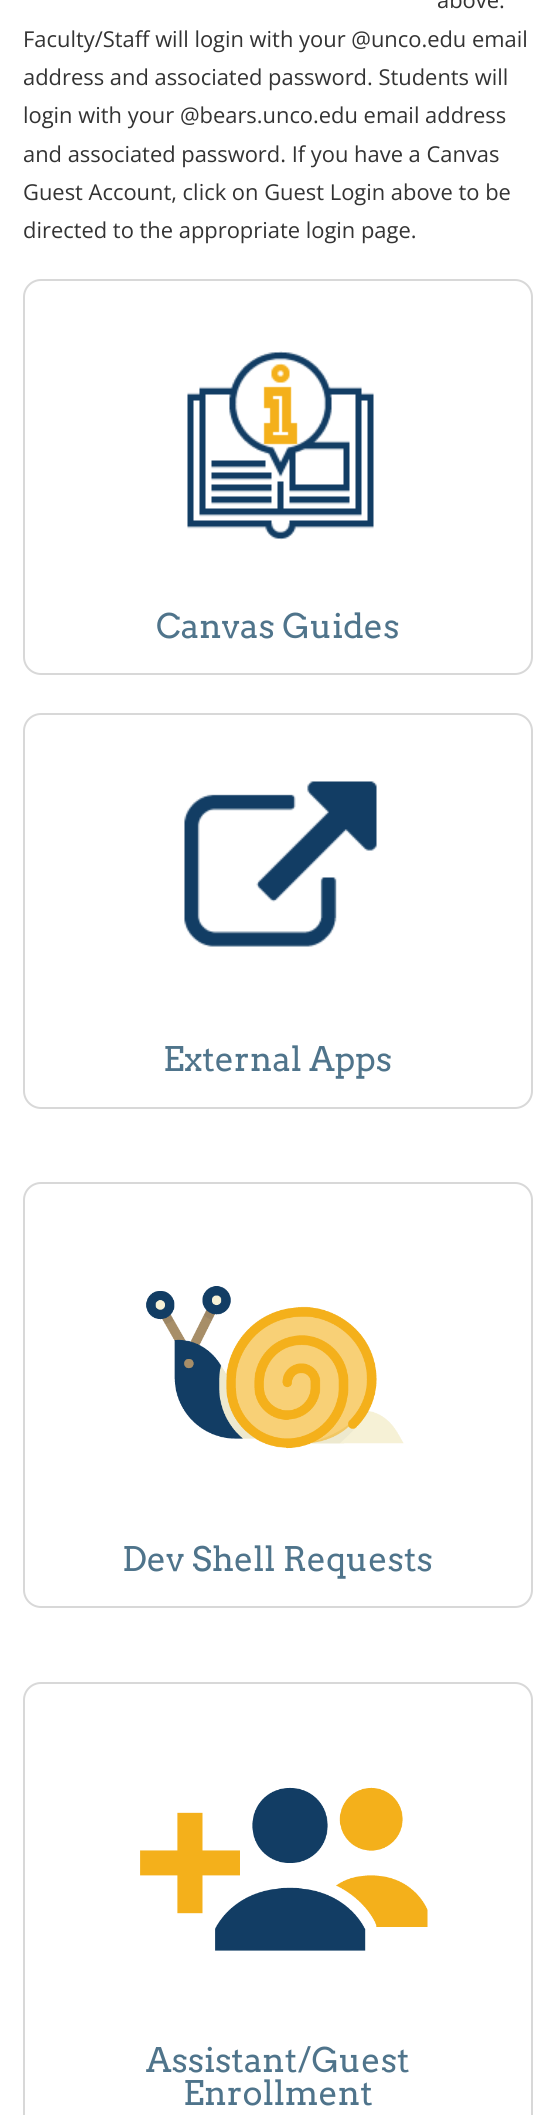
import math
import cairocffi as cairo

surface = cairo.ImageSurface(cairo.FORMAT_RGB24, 554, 2115)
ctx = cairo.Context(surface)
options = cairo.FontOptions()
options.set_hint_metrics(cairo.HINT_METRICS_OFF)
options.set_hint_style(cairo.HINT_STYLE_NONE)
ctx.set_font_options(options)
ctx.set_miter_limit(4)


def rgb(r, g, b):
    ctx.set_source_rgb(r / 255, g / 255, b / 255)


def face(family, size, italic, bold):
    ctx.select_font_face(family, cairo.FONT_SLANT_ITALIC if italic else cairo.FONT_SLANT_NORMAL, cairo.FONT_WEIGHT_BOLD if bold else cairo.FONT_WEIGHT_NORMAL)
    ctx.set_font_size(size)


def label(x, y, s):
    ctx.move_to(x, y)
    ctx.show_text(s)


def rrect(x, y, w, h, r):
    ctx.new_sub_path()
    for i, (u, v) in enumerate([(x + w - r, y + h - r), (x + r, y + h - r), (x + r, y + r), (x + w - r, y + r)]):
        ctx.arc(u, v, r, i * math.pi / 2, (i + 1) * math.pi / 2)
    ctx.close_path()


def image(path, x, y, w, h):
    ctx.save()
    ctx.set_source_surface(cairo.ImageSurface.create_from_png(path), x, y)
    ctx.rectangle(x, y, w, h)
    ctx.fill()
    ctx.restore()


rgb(255, 255, 255)
ctx.paint()
face('Open Sans', 21.9, 0, 0)
rgb(51, 51, 51)
label(437, 8, 'above.')
label(23, 47, 'Faculty/Staff will login with your @unco.edu email')
label(23, 85, 'address and associated password. Students will')
label(23, 123, 'login with your @bears.unco.edu email address')
label(23, 162, 'and associated password. If you have a Canvas')
label(23, 200, 'Guest Account, click on Guest Login above to be')
label(23, 238, 'directed to the appropriate login page.')
rrect(24, 280, 508, 394, 17)
rgb(216, 216, 216)
ctx.stroke()
image('image0.png', 187, 351, 187, 189)
face('Arvo', 33.75, 0, 0)
rgb(79, 116, 139)
label(156, 638, 'Canvas Guides')
rrect(24, 714, 508, 394, 17)
rgb(216, 216, 216)
ctx.stroke()
image('image1.png', 184, 781, 193, 166)
rgb(79, 116, 139)
label(163, 1071, 'External Apps')
rrect(24, 1183, 508, 424, 17)
rgb(216, 216, 216)
ctx.stroke()
image('image2.png', 146, 1286, 258, 163)
rgb(79, 116, 139)
label(122, 1571, 'Dev Shell Requests')
rrect(24, 1683, 508, 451, 17)
rgb(216, 216, 216)
ctx.stroke()
image('image3.png', 140, 1787, 288, 164)
rgb(79, 116, 139)
label(146, 2072, 'Assistant/Guest')
label(183, 2105, 'Enrollment')
surface.write_to_png('render.png')
